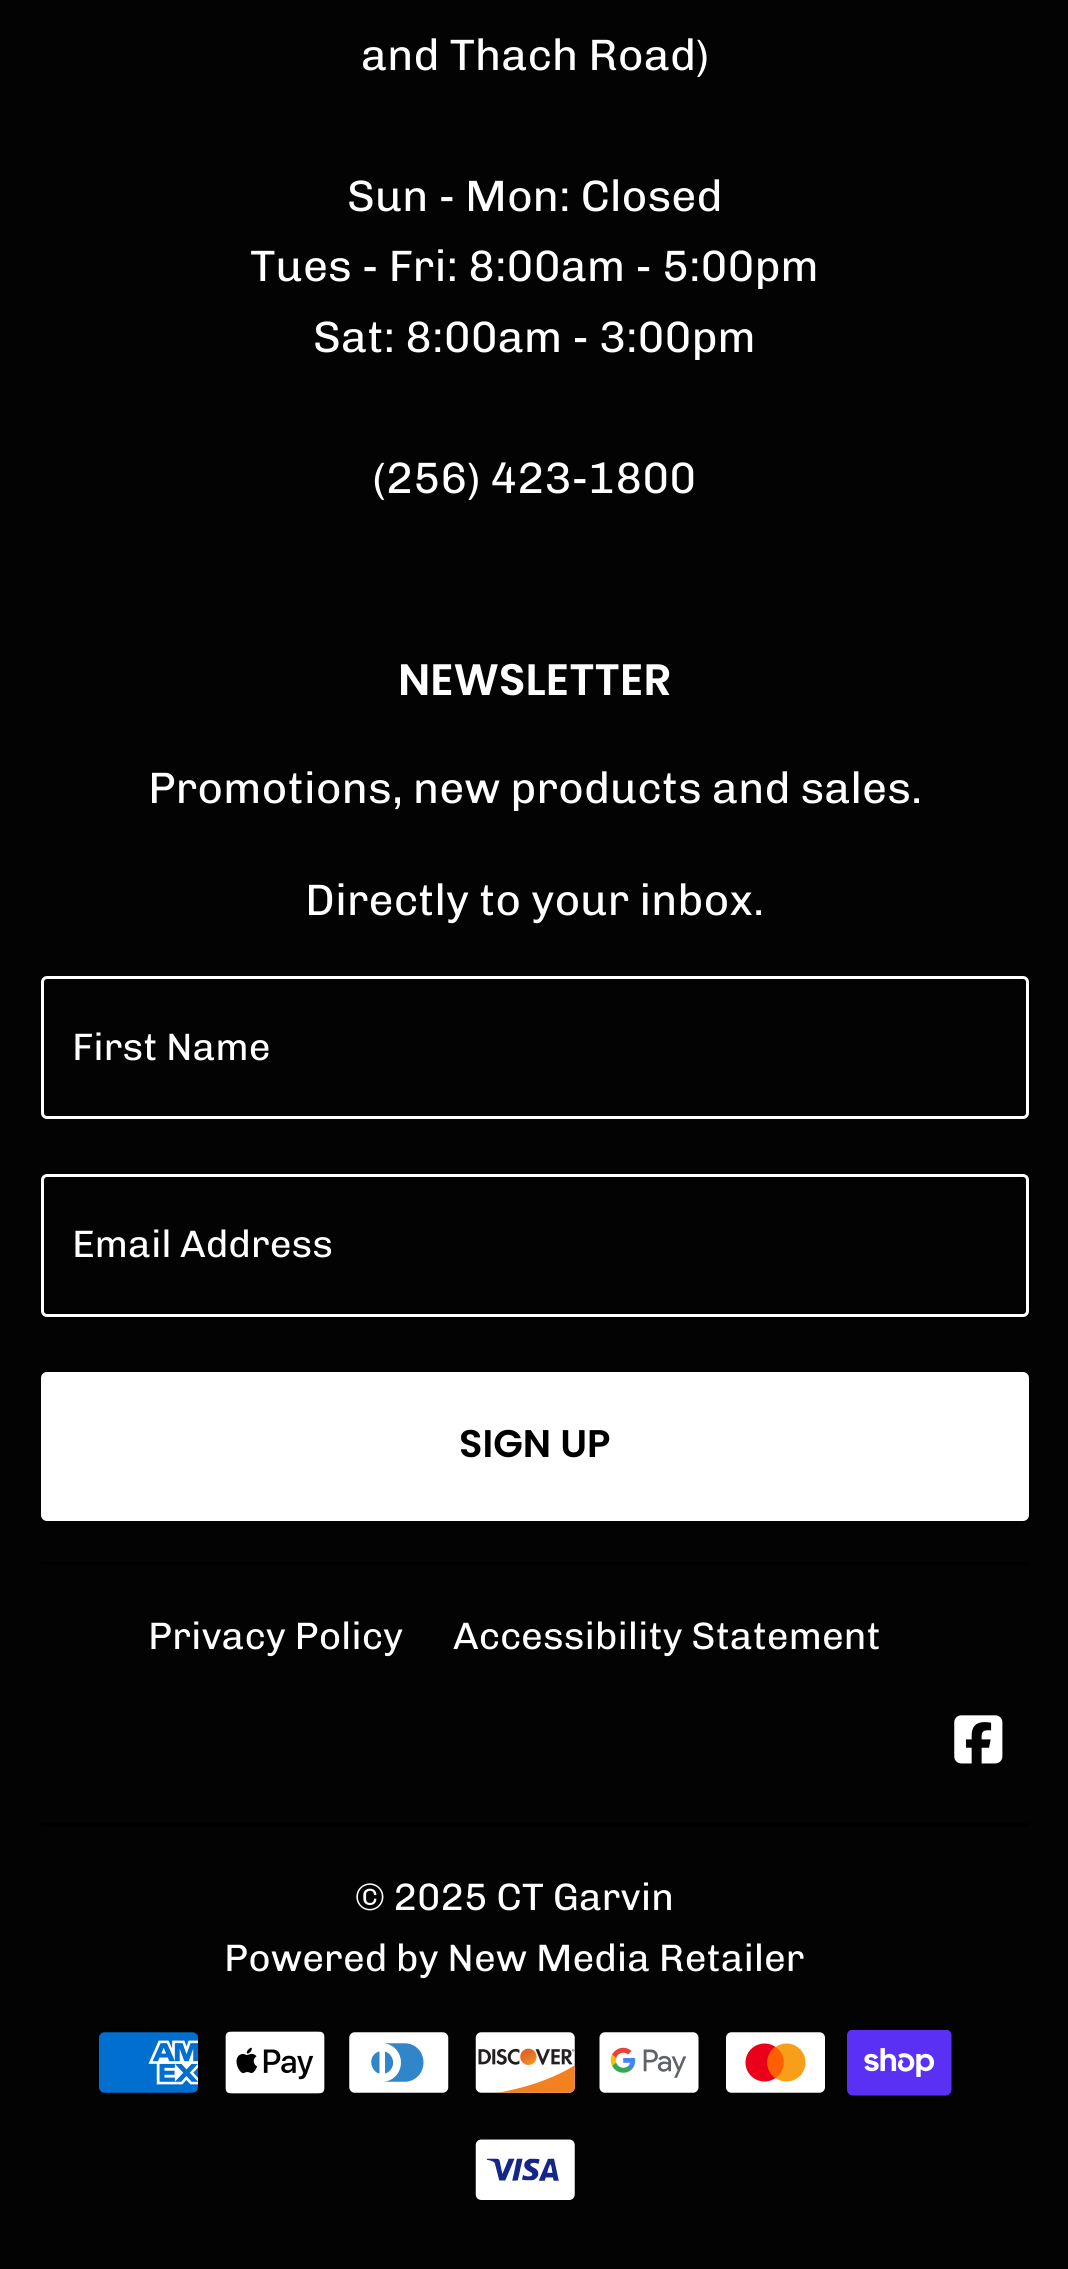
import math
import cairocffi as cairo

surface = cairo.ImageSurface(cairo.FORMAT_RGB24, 1068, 2269)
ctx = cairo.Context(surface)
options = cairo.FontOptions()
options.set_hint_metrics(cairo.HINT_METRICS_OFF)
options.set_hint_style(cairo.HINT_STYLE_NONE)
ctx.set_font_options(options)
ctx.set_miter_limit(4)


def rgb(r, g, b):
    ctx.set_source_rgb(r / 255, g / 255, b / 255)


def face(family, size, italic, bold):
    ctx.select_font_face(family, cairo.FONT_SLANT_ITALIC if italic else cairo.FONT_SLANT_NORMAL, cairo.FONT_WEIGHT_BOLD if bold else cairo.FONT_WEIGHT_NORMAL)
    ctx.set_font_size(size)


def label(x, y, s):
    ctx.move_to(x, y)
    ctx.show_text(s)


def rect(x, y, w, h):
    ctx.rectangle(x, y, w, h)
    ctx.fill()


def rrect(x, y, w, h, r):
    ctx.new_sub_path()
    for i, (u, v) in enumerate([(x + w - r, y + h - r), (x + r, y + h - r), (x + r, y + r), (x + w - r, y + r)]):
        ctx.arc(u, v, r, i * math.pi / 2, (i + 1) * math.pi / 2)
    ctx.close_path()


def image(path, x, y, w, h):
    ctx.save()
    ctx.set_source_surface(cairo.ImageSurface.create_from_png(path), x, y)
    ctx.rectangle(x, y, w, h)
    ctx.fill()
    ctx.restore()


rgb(3, 3, 3)
ctx.paint()
face('Chivo', 44, 0, 0)
rgb(255, 255, 255)
label(361, 70, 'and Thach Road)')
label(347, 211, 'Sun - Mon: Closed')
label(250, 281, 'Tues - Fri: 8:00am - 5:00pm')
label(313, 352, 'Sat: 8:00am - 3:00pm')
label(373, 493, '(256) 423-1800')
face('Poppins SemiBold', 44, 0, 0)
label(398, 695, 'NEWSLETTER')
face('Chivo', 44, 0, 0)
label(148, 803, 'Promotions, new products and sales.')
label(305, 915, 'Directly to your inbox.')
rrect(42.5, 977.5, 985, 140, 4.5)
ctx.set_line_width(3)
ctx.stroke()
face('Chivo', 38.25, 0, 0)
label(72, 1060, 'First Name')
rrect(42.5, 1175.5, 985, 140, 4.5)
ctx.stroke()
label(72, 1257, 'Email Address')
rrect(41, 1372, 988, 149, 6)
ctx.fill()
face('Poppins SemiBold', 38.5, 0, 0)
rgb(0, 0, 0)
label(459, 1457, 'SIGN UP')
rect(41, 1562, 988, 3)
face('Chivo', 38.25, 0, 0)
rgb(255, 255, 255)
label(148, 1649, 'Privacy Policy')
label(453, 1649, 'Accessibility Statement')
image('image0.png', 954, 1715, 49, 49)
rgb(0, 0, 0)
rect(41, 1823, 988, 3)
rgb(255, 255, 255)
label(355, 1910, '© 2025 CT Garvin')
label(224, 1971, 'Powered by New Media Retailer')
image('image1.png', 99, 2032, 99, 61)
image('image2.png', 225, 2031, 100, 63)
image('image3.png', 349, 2032, 100, 61)
image('image4.png', 475, 2032, 100, 61)
image('image5.png', 599, 2032, 100, 61)
image('image6.png', 726, 2032, 99, 61)
image('image7.png', 847, 2030, 105, 66)
image('image8.png', 475, 2139, 100, 61)
surface.write_to_png('render.png')
